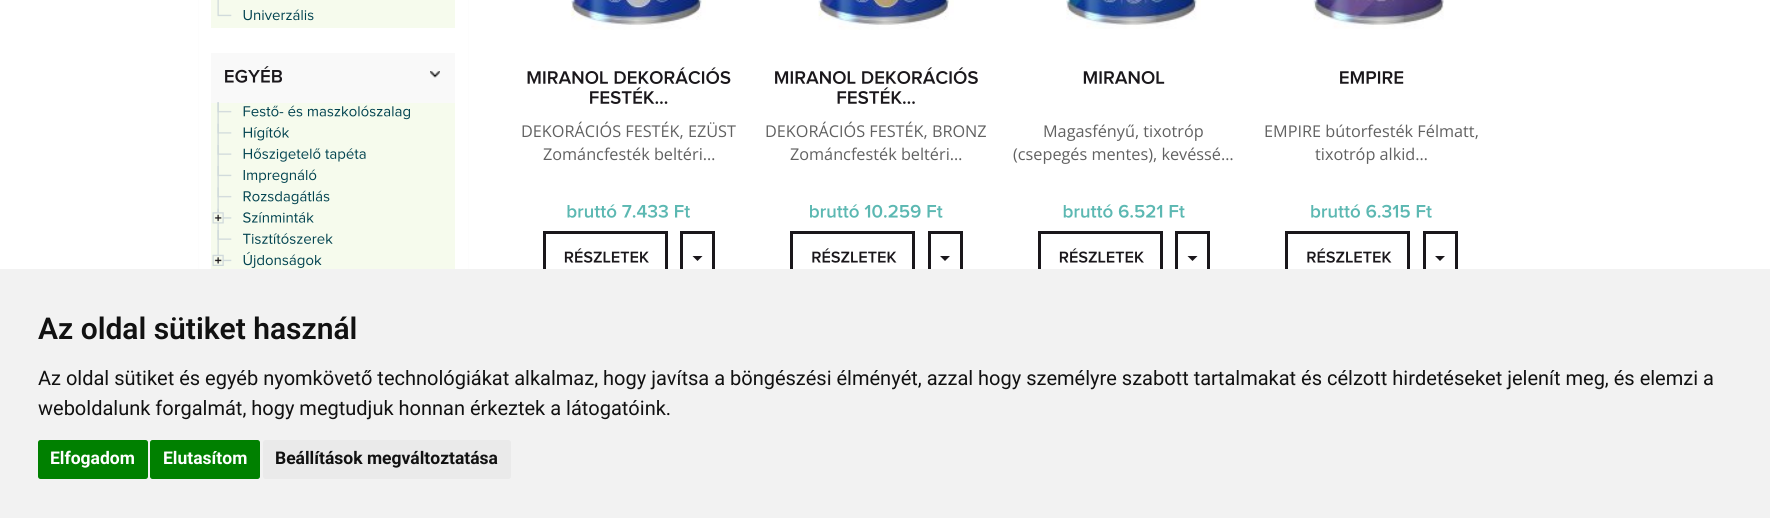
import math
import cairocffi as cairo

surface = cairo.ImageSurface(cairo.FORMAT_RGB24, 1770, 518)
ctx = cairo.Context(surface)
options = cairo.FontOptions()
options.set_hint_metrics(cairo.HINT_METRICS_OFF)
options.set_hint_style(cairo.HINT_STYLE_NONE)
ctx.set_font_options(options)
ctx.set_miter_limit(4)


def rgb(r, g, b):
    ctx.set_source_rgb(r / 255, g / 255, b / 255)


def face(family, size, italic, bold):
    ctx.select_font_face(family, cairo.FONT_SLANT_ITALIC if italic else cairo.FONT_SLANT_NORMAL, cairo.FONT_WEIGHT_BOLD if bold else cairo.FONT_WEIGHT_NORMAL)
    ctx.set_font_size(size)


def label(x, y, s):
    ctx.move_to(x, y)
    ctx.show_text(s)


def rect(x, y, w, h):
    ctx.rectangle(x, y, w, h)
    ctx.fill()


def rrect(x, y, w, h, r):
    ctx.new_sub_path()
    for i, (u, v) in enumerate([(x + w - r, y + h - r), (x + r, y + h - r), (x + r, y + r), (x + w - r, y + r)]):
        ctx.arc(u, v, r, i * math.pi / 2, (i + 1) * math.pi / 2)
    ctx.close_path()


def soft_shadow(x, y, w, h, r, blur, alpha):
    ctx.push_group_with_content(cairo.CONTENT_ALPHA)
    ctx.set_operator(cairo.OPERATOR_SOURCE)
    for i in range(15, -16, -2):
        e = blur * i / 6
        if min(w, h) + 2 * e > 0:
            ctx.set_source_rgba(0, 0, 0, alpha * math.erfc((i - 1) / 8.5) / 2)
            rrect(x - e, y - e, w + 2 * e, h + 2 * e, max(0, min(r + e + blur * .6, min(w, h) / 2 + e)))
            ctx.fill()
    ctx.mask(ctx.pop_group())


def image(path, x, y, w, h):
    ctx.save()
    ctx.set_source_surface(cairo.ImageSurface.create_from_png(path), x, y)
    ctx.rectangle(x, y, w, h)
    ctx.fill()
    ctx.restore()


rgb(255, 255, 255)
ctx.paint()
ctx.save()
ctx.set_fill_rule(cairo.FILL_RULE_EVEN_ODD)
ctx.new_path()
ctx.move_to(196, 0)
ctx.line_to(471, 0)
ctx.line_to(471, 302)
ctx.line_to(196, 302)
ctx.close_path()
ctx.move_to(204, -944)
ctx.line_to(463, -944)
ctx.curve_to(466, -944, 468, -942, 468, -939)
ctx.line_to(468, 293)
ctx.curve_to(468, 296, 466, 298, 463, 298)
ctx.line_to(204, 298)
ctx.curve_to(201, 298, 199, 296, 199, 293)
ctx.line_to(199, -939)
ctx.curve_to(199, -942, 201, -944, 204, -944)
ctx.close_path()
ctx.clip()
rgb(0, 0, 0)
soft_shadow(199, -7, 269, 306, 5, 0.5, 0.05)
ctx.restore()
rgb(246, 251, 237)
rect(211, 0, 244, 28)
image('image0.png', 217, 0, 2, 6)
image('image1.png', 217, 6, 15, 11)
image('image2.png', 243, 9, 71, 12)
rgb(249, 249, 249)
rect(211, 53, 244, 50)
image('image3.png', 430, 71, 10, 7)
image('image4.png', 225, 66, 57, 17)
rgb(246, 251, 237)
rect(211, 103, 244, 166)
image('image5.png', 217, 102, 15, 22)
image('image6.png', 243, 105, 167, 15)
image('image7.png', 217, 123, 15, 22)
image('image8.png', 243, 127, 46, 14)
image('image9.png', 217, 144, 15, 22)
image('image10.png', 243, 148, 123, 14)
image('image11.png', 217, 166, 15, 22)
image('image12.png', 243, 169, 74, 14)
image('image13.png', 217, 187, 15, 22)
image('image14.png', 243, 190, 87, 15)
image('image15.png', 217, 208, 15, 22)
image('image16.png', 212, 212, 12, 12)
image('image17.png', 243, 212, 71, 11)
image('image9.png', 217, 229, 15, 22)
image('image18.png', 243, 233, 90, 11)
image('image1.png', 217, 251, 15, 11)
image('image19.png', 212, 254, 12, 12)
image('image20.png', 243, 251, 79, 17)
image('image21.png', 570, 0, 136, 30)
image('image22.png', 527, 67, 204, 17)
image('image23.png', 590, 87, 78, 17)
face('Open Sans', 16.25, 0, 0)
rgb(97, 97, 97)
label(521, 137, 'DEKORÁCIÓS FESTÉK, EZÜST')
label(543, 160, 'Zománcfesték beltéri…')
image('image24.png', 567, 204, 123, 14)
ctx.rectangle(544.5, 232.5, 122, 47)
rgb(26, 23, 27)
ctx.set_line_width(3)
ctx.stroke()
image('image25.png', 564, 248, 85, 15)
ctx.rectangle(681.5, 232.5, 32, 47)
ctx.stroke()
ctx.new_path()
ctx.move_to(692.5, 256)
ctx.line_to(702.5, 256)
ctx.line_to(697.5, 261)
ctx.close_path()
ctx.fill()
image('image26.png', 818, 0, 136, 30)
image('image27.png', 775, 67, 203, 17)
image('image28.png', 837, 87, 78, 17)
rgb(97, 97, 97)
label(765, 137, 'DEKORÁCIÓS FESTÉK, BRONZ')
label(790, 160, 'Zománcfesték beltéri…')
image('image29.png', 810, 204, 133, 14)
ctx.rectangle(791.5, 232.5, 122, 47)
rgb(26, 23, 27)
ctx.stroke()
image('image30.png', 812, 248, 85, 15)
ctx.rectangle(929.5, 232.5, 32, 47)
ctx.stroke()
ctx.new_path()
ctx.move_to(940, 256)
ctx.line_to(950, 256)
ctx.line_to(945, 261)
ctx.close_path()
ctx.fill()
image('image31.png', 1066, 0, 135, 29)
image('image32.png', 1083, 71, 82, 13)
rgb(97, 97, 97)
label(1043, 137, 'Magasfényű, tixotróp')
label(1013, 160, '(csepegés mentes), kevéssé…')
image('image33.png', 1063, 204, 122, 14)
ctx.rectangle(1039.5, 232.5, 122, 47)
rgb(26, 23, 27)
ctx.stroke()
image('image25.png', 1059, 248, 85, 15)
ctx.rectangle(1176.5, 232.5, 32, 47)
ctx.stroke()
ctx.new_path()
ctx.move_to(1187.5, 256)
ctx.line_to(1197.5, 256)
ctx.line_to(1192.5, 261)
ctx.close_path()
ctx.fill()
image('image34.png', 1313, 0, 131, 29)
image('image35.png', 1340, 71, 64, 13)
rgb(97, 97, 97)
label(1264, 137, 'EMPIRE bútorfesték Félmatt,')
label(1315, 160, 'tixotróp alkid…')
image('image36.png', 1311, 204, 121, 14)
ctx.rectangle(1286.5, 232.5, 122, 47)
rgb(26, 23, 27)
ctx.stroke()
image('image30.png', 1307, 248, 85, 15)
ctx.rectangle(1424.5, 232.5, 32, 47)
ctx.stroke()
ctx.new_path()
ctx.move_to(1435, 256)
ctx.line_to(1445, 256)
ctx.line_to(1440, 261)
ctx.close_path()
ctx.fill()
rgb(242, 242, 242)
rect(0, 269, 1770, 249)
face('Roboto SemiBold', 30, 0, 0)
rgb(17, 17, 17)
label(38, 339, 'Az oldal sütiket használ')
face('Roboto', 20, 0, 0)
label(38, 385, 'Az oldal sütiket és egyéb nyomkövető technológiákat alkalmaz, hogy javítsa a böngészési élményét, azzal hogy személyre szabott tartalmakat és célzott hirdetéseket jelenít meg, és elemzi a')
label(38, 415, 'weboldalunk forgalmát, hogy megtudjuk honnan érkeztek a látogatóink.')
rgb(0, 128, 0)
rrect(38, 440, 110, 39, 2.5)
ctx.fill()
face('Roboto', 17.5, 0, 1)
rgb(255, 255, 255)
label(50, 464, 'Elfogadom')
rgb(0, 128, 0)
rrect(150, 440, 110, 39, 2.5)
ctx.fill()
rgb(255, 255, 255)
label(163, 464, 'Elutasítom')
rgb(234, 234, 234)
rrect(263, 440, 248, 39, 2.5)
ctx.fill()
rgb(17, 17, 17)
label(275, 464, 'Beállítások megváltoztatása')
surface.write_to_png('render.png')
